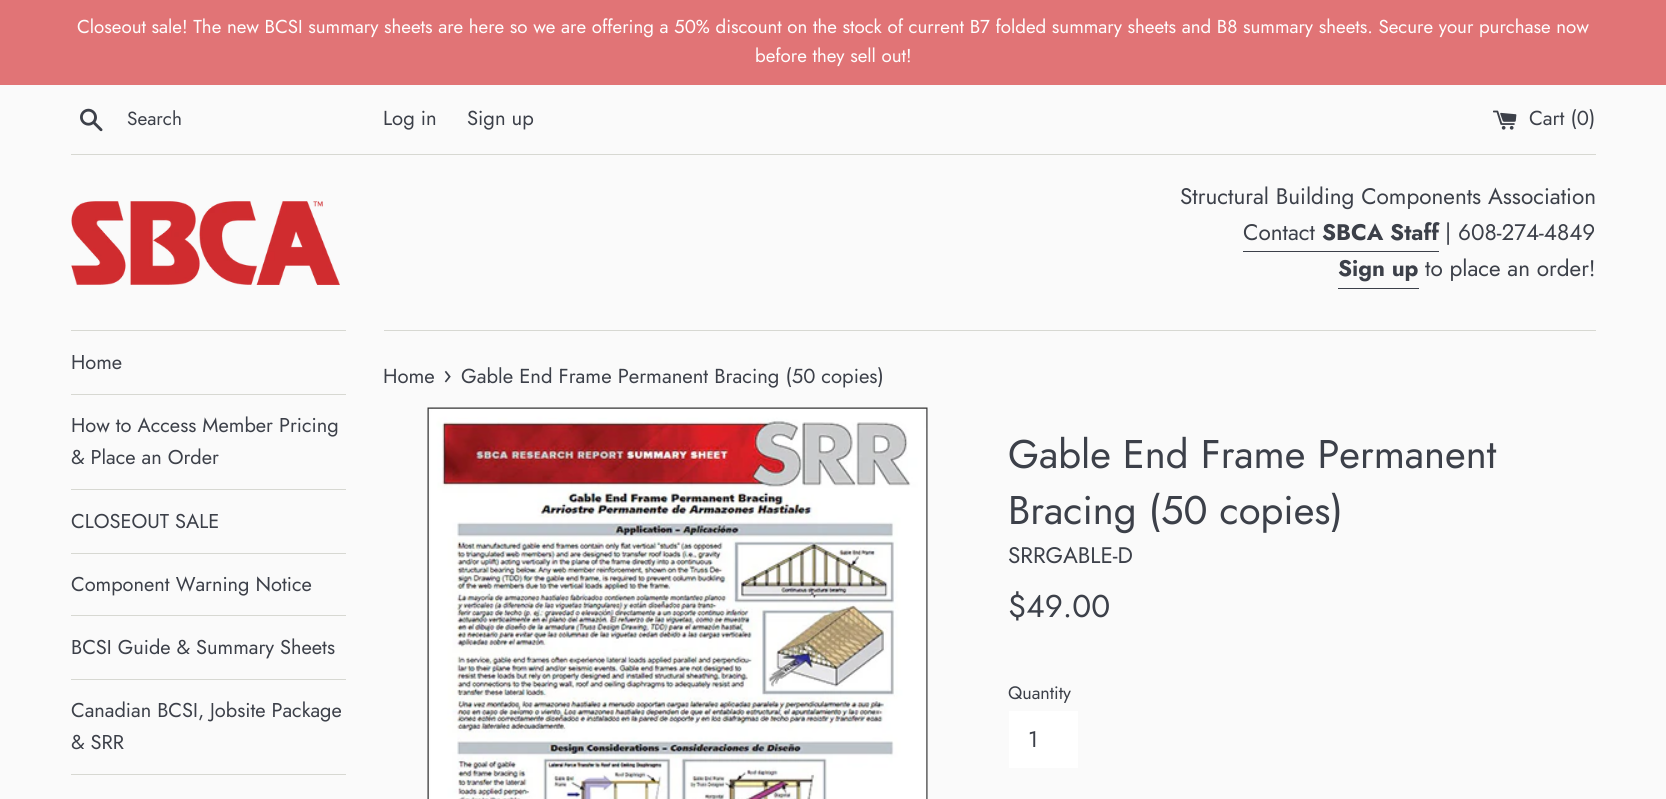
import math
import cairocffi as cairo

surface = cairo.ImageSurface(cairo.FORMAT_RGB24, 1666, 799)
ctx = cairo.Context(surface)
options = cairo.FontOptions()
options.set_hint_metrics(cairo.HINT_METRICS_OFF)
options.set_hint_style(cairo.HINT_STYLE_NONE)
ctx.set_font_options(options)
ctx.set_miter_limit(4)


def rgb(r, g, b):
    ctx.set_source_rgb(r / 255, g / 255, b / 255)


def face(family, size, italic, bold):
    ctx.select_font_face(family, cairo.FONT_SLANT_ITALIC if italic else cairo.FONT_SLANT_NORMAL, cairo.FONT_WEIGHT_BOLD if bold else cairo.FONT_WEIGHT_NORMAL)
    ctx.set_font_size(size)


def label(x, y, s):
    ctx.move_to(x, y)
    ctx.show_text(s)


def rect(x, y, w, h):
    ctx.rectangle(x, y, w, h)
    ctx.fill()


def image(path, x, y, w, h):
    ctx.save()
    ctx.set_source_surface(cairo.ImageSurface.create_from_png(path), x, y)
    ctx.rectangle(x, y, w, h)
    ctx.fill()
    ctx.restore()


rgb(250, 250, 250)
ctx.paint()
rgb(225, 116, 118)
rect(0, 0, 1666, 85)
face('Jost', 18.68, 0, 0)
rgb(254, 254, 254)
label(77, 33, 'Closeout sale! The new BCSI summary sheets are here so we are offering a 50% discount on the stock of current B7 folded summary sheets and B8 summary sheets. Secure your purchase now')
label(755, 62, 'before they sell out!')
image('image0.png', 80, 108, 23, 24)
face('Jost', 19, 0, 0)
rgb(60, 64, 73)
label(127, 125, 'Search')
face('Jost', 20.25, 0, 0)
label(383, 125, 'Log in')
label(467, 125, 'Sign up')
image('image1.png', 1493, 110, 24, 20)
label(1529, 125, 'Cart (0)')
rgb(215, 216, 210)
rect(71, 154, 1525, 1)
image('image2.png', 71, 201, 269, 84)
face('Jost', 22.5, 0, 0)
rgb(60, 64, 73)
label(1180, 204, 'Structural Building Components Association')
label(1243, 240, 'Contact')
rect(1243, 251, 196, 1)
face('Jost', 22.5, 0, 1)
label(1322, 240, 'SBCA Staff')
face('Jost', 22.5, 0, 0)
label(1445, 240, '| 608-274-4849')
face('Jost', 22.5, 0, 1)
label(1338, 276, 'Sign up')
rect(1338, 288, 81, 1)
face('Jost', 22.5, 0, 0)
label(1425, 276, 'to place an order!')
rgb(215, 216, 210)
rect(71, 330, 275, 1)
rect(71, 394, 275, 1)
face('Jost', 20, 0, 0)
rgb(60, 64, 73)
label(71, 369, 'Home')
rgb(215, 216, 210)
rect(71, 489, 275, 1)
rgb(60, 64, 73)
label(71, 432, 'How to Access Member Pricing')
label(71, 464, '& Place an Order')
rgb(215, 216, 210)
rect(71, 553, 275, 1)
rgb(60, 64, 73)
label(71, 528, 'CLOSEOUT SALE')
rgb(215, 216, 210)
rect(71, 615, 275, 1)
rgb(60, 64, 73)
label(71, 591, 'Component Warning Notice')
rgb(215, 216, 210)
rect(71, 679, 275, 1)
rgb(60, 64, 73)
label(71, 654, 'BCSI Guide & Summary Sheets')
rgb(215, 216, 210)
rect(71, 774, 275, 1)
rgb(60, 64, 73)
label(71, 717, 'Canadian BCSI, Jobsite Package')
label(71, 749, '& SRR')
rgb(215, 216, 210)
rect(384, 330, 1212, 1)
face('Jost', 20.25, 0, 0)
rgb(60, 64, 73)
label(383, 383, 'Home')
face('Jost', 25, 0, 0)
label(443, 383, '›')
face('Jost', 20.25, 0, 0)
label(461, 383, 'Gable End Frame Permanent Bracing (50 copies)')
image('image3.png', 427, 407, 501, 392)
face('Jost', 40, 0, 0)
label(1008, 468, 'Gable End Frame Permanent')
label(1008, 524, 'Bracing (50 copies)')
face('Jost', 22.5, 0, 0)
label(1008, 563, 'SRRGABLE-D')
face('Jost', 31.5, 0, 0)
label(1008, 617, '$49.00')
face('Jost', 18, 0, 0)
label(1008, 699, 'Quantity')
rgb(255, 255, 255)
rect(1009, 711, 69, 57)
face('Jost', 22.5, 0, 0)
rgb(60, 64, 73)
label(1028, 747, '1')
surface.write_to_png('render.png')
